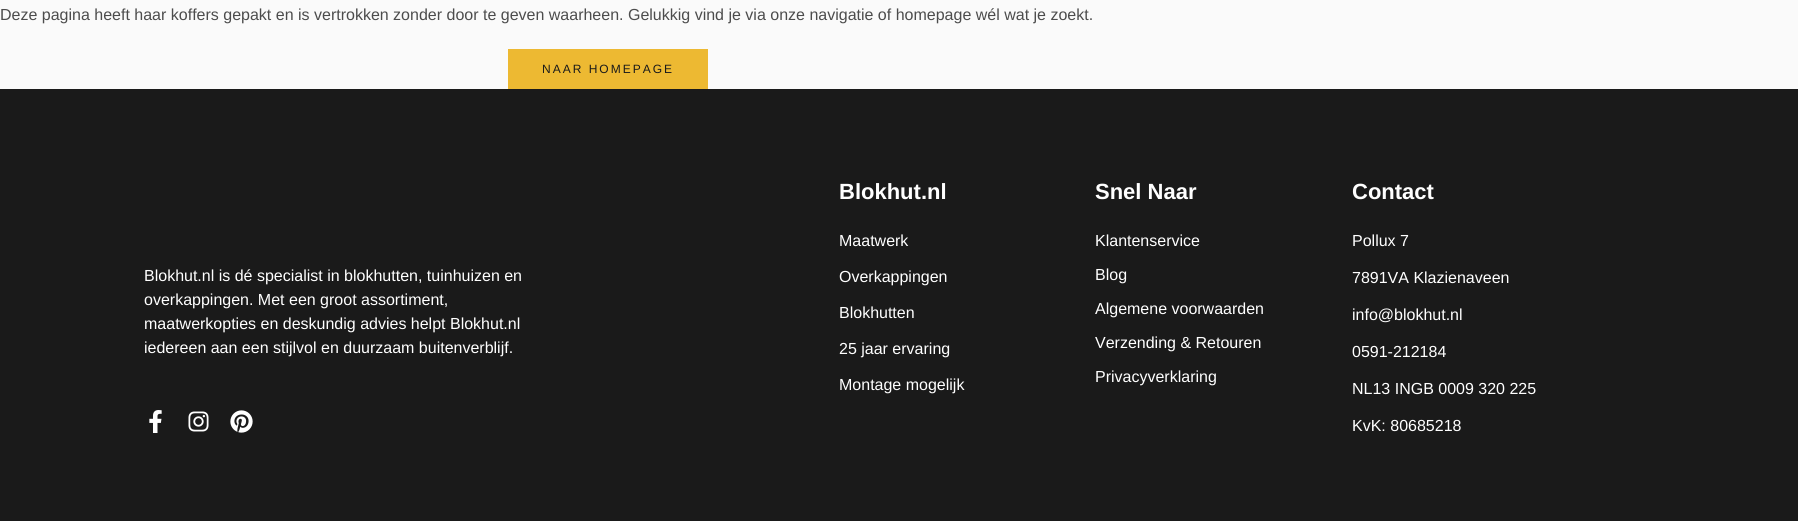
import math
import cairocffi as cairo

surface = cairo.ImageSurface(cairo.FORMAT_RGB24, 1798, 521)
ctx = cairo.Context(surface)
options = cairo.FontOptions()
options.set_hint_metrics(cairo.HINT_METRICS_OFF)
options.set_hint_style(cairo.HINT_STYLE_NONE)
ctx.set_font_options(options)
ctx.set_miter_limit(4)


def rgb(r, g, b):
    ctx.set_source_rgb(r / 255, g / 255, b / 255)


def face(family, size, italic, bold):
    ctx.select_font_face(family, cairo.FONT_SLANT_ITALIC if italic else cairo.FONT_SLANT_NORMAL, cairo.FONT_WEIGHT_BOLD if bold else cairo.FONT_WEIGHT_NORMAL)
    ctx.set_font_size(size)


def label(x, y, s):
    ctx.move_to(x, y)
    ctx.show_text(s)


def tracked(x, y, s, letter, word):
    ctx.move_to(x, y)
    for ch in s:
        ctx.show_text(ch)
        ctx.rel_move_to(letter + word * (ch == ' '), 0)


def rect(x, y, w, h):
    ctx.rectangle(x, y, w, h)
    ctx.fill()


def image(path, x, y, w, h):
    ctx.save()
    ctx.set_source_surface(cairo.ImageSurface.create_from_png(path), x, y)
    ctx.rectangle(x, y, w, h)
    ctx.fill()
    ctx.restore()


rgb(250, 250, 250)
ctx.paint()
face('Liberation Sans', 16, 0, 0)
rgb(76, 76, 76)
label(0, 20, 'Deze pagina heeft haar koffers gepakt en is vertrokken zonder door te geven waarheen. Gelukkig vind je via onze navigatie of homepage wél wat je zoekt.')
rgb(237, 185, 50)
rect(508, 49, 200, 40)
face('Liberation Sans', 12, 0, 0)
rgb(26, 26, 26)
tracked(542, 73, 'NAAR HOMEPAGE', 2, 0)
rect(0, 89, 1798, 432)
face('Liberation Sans', 16, 0, 0)
rgb(255, 255, 255)
label(144, 281, 'Blokhut.nl is dé specialist in blokhutten, tuinhuizen en')
label(144, 305, 'overkappingen. Met een groot assortiment,')
label(144, 329, 'maatwerkopties en deskundig advies helpt Blokhut.nl')
label(144, 353, 'iedereen aan een stijlvol en duurzaam buitenverblijf.')
image('image0.png', 149, 410, 13, 23)
image('image1.png', 188, 411, 21, 21)
image('image2.png', 230, 410, 23, 23)
face('Liberation Sans', 22, 0, 1)
label(839, 199, 'Blokhut.nl')
face('Liberation Sans', 16, 0, 0)
label(839, 246, 'Maatwerk')
label(839, 282, 'Overkappingen')
label(839, 318, 'Blokhutten')
label(839, 354, '25 jaar ervaring')
label(839, 390, 'Montage mogelijk')
face('Liberation Sans', 22, 0, 1)
label(1095, 199, 'Snel Naar')
face('Liberation Sans', 16, 0, 0)
label(1095, 246, 'Klantenservice')
label(1095, 280, 'Blog')
label(1095, 314, 'Algemene voorwaarden')
label(1095, 348, 'Verzending & Retouren')
label(1095, 382, 'Privacyverklaring')
face('Liberation Sans', 22, 0, 1)
label(1352, 199, 'Contact')
face('Liberation Sans', 16, 0, 0)
label(1352, 246, 'Pollux 7')
label(1352, 283, '7891VA Klazienaveen')
label(1352, 320, 'info@blokhut.nl')
label(1352, 357, '0591-212184')
label(1352, 394, 'NL13 INGB 0009 320 225')
label(1352, 431, 'KvK: 80685218')
surface.write_to_png('render.png')
